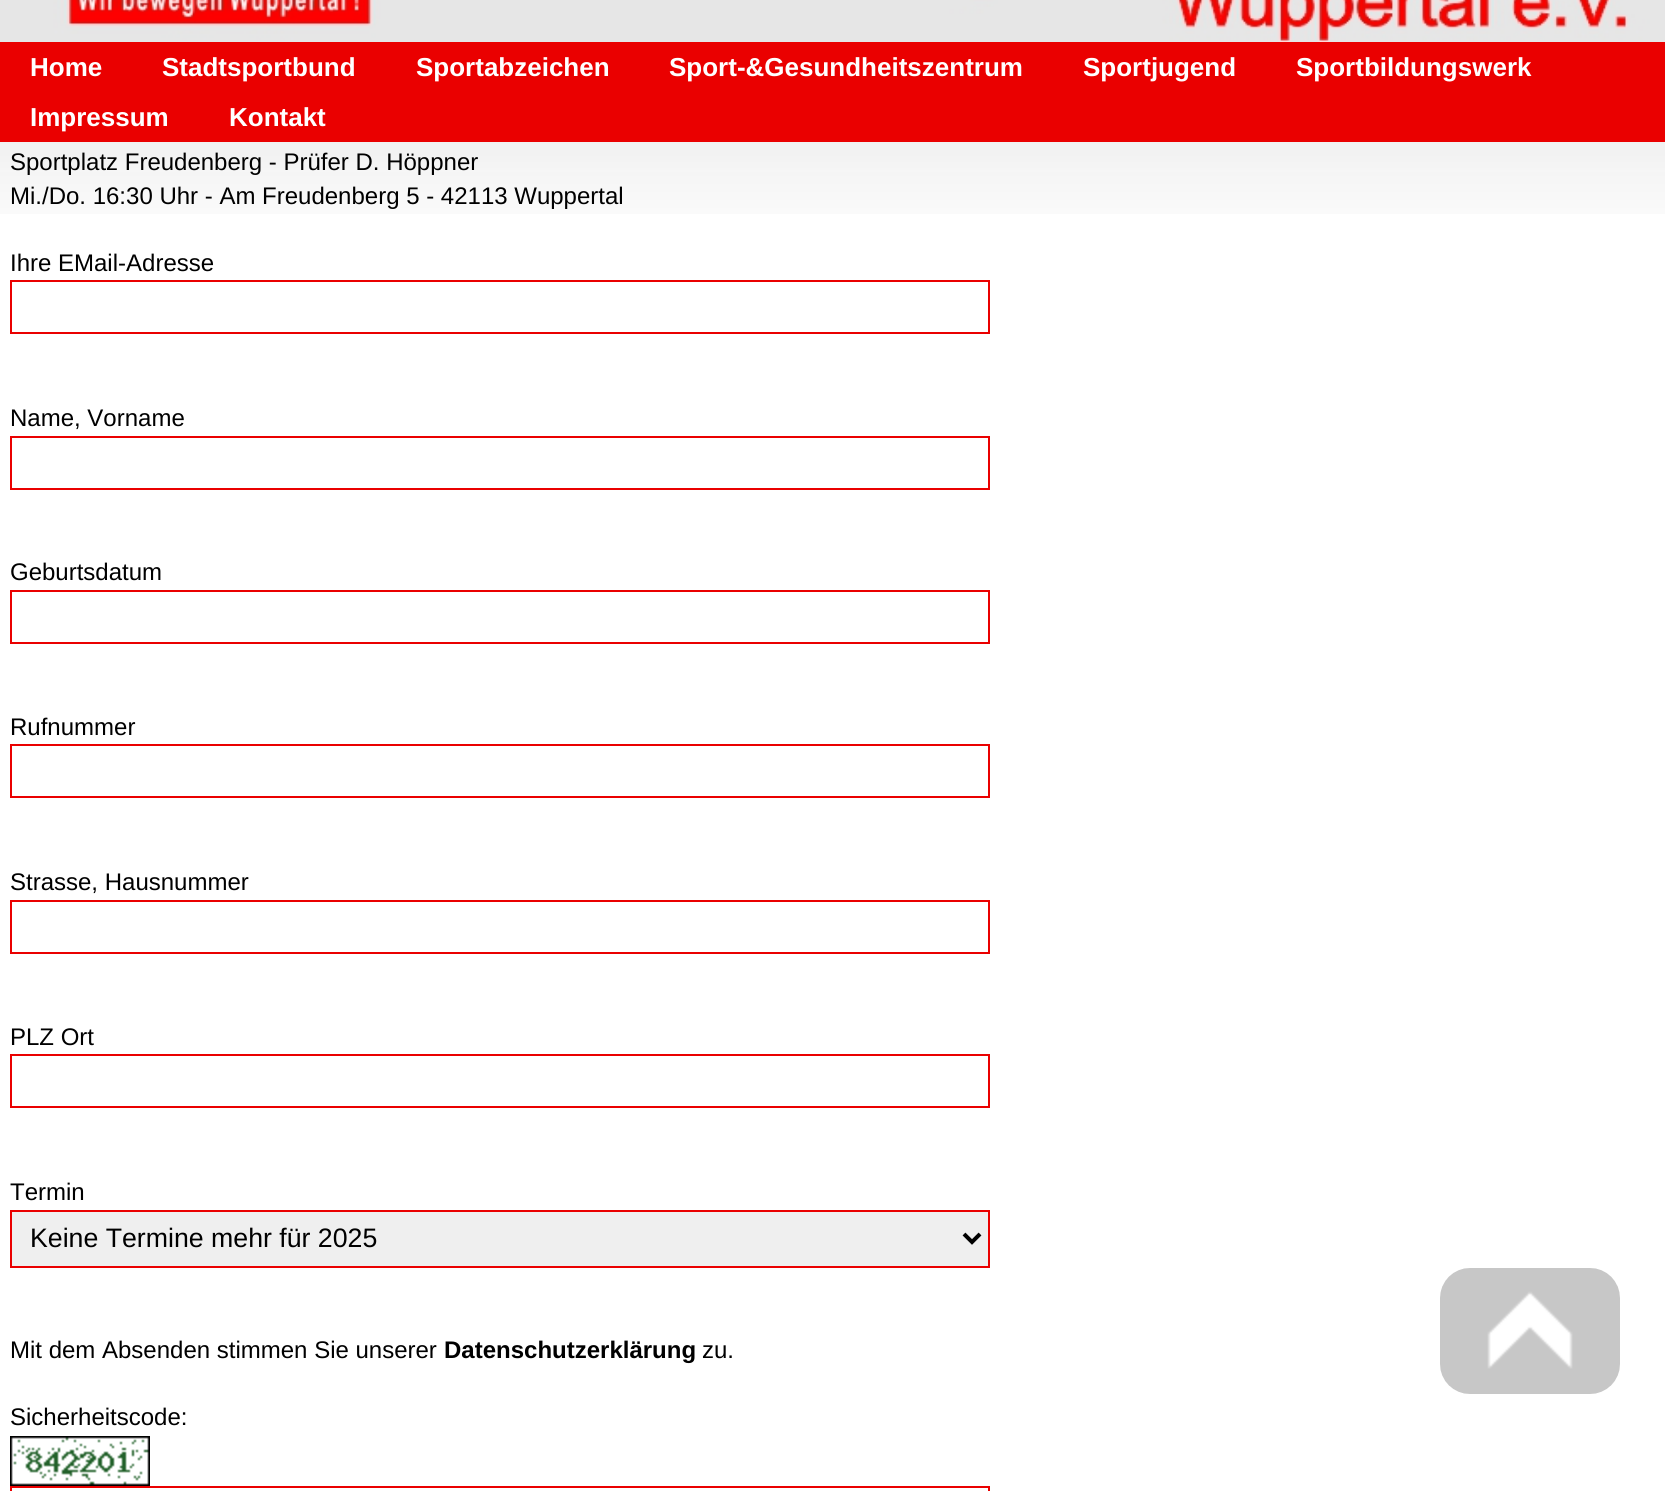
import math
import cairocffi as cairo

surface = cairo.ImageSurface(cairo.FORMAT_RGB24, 1665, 1491)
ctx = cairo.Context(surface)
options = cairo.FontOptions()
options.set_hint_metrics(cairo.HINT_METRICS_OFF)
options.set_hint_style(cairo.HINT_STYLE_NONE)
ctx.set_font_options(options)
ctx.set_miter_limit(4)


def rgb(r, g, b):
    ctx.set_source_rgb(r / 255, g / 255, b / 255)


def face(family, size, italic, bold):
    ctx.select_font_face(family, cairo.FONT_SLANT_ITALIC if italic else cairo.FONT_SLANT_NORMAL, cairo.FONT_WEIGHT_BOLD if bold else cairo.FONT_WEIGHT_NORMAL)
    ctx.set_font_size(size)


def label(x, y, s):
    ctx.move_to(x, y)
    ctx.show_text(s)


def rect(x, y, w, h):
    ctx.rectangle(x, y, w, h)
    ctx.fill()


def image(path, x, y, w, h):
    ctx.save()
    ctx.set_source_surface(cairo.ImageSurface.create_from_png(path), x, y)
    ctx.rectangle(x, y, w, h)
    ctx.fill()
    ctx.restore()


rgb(255, 255, 255)
ctx.paint()
image('image0.png', 0, 142, 1665, 72)
image('image1.png', 0, 0, 1665, 42)
rgb(234, 0, 0)
rect(0, 42, 1665, 100)
face('Liberation Sans', 26, 0, 1)
rgb(255, 255, 255)
label(30, 76, 'Home')
label(162, 76, 'Stadtsportbund')
label(416, 76, 'Sportabzeichen')
label(669, 76, 'Sport-&Gesundheitszentrum')
label(1083, 76, 'Sportjugend')
label(1296, 76, 'Sportbildungswerk')
label(30, 126, 'Impressum')
label(229, 126, 'Kontakt')
face('Liberation Sans', 24, 0, 0)
rgb(0, 0, 0)
label(10, 170, 'Sportplatz Freudenberg - Prüfer D. Höppner')
label(10, 204, 'Mi./Do. 16:30 Uhr - Am Freudenberg 5 - 42113 Wuppertal')
label(10, 271, 'Ihre EMail-Adresse')
ctx.rectangle(11, 281, 978, 52)
rgb(234, 0, 0)
ctx.stroke()
rgb(0, 0, 0)
label(10, 426, 'Name, Vorname')
ctx.rectangle(11, 437, 978, 52)
rgb(234, 0, 0)
ctx.stroke()
rgb(0, 0, 0)
label(10, 580, 'Geburtsdatum')
ctx.rectangle(11, 591, 978, 52)
rgb(234, 0, 0)
ctx.stroke()
rgb(0, 0, 0)
label(10, 735, 'Rufnummer')
ctx.rectangle(11, 745, 978, 52)
rgb(234, 0, 0)
ctx.stroke()
rgb(0, 0, 0)
label(10, 890, 'Strasse, Hausnummer')
ctx.rectangle(11, 901, 978, 52)
rgb(234, 0, 0)
ctx.stroke()
rgb(0, 0, 0)
label(10, 1045, 'PLZ Ort')
ctx.rectangle(11, 1055, 978, 52)
rgb(234, 0, 0)
ctx.stroke()
rgb(0, 0, 0)
label(10, 1200, 'Termin')
rgb(239, 239, 239)
ctx.rectangle(11, 1211, 978, 56)
ctx.fill_preserve()
rgb(234, 0, 0)
ctx.stroke()
ctx.new_path()
ctx.move_to(964, 1234)
ctx.line_to(972, 1242)
ctx.line_to(980, 1234)
rgb(0, 0, 0)
ctx.set_line_width(4)
ctx.stroke()
face('Liberation Sans', 26.7, 0, 0)
label(30, 1247, 'Keine Termine mehr für 2025')
face('Liberation Sans', 24, 0, 0)
label(10, 1358, 'Mit dem Absenden stimmen Sie unserer')
face('Liberation Sans', 24, 0, 1)
label(444, 1358, 'Datenschutzerklärung')
face('Liberation Sans', 24, 0, 0)
label(702, 1358, 'zu.')
label(10, 1425, 'Sicherheitscode:')
image('image2.png', 10, 1436, 140, 50)
ctx.rectangle(11, 1487, 978, 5)
rgb(234, 0, 0)
ctx.set_line_width(2)
ctx.stroke()
image('image3.png', 1440, 1268, 180, 126)
surface.write_to_png('render.png')
